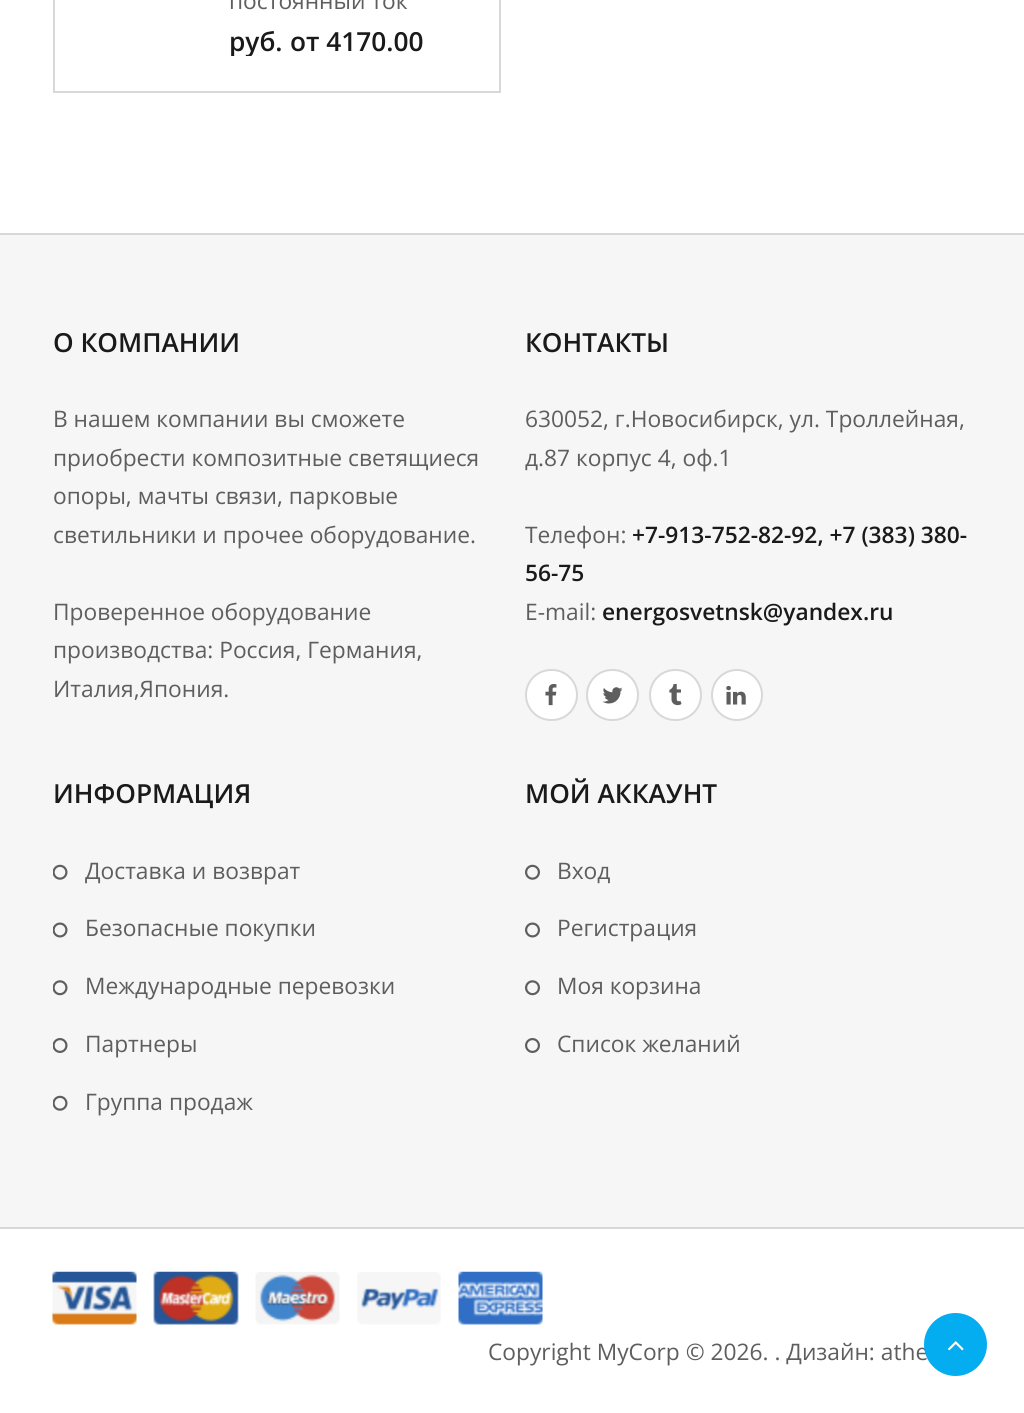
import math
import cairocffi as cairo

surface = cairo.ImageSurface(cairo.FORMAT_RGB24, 1024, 1413)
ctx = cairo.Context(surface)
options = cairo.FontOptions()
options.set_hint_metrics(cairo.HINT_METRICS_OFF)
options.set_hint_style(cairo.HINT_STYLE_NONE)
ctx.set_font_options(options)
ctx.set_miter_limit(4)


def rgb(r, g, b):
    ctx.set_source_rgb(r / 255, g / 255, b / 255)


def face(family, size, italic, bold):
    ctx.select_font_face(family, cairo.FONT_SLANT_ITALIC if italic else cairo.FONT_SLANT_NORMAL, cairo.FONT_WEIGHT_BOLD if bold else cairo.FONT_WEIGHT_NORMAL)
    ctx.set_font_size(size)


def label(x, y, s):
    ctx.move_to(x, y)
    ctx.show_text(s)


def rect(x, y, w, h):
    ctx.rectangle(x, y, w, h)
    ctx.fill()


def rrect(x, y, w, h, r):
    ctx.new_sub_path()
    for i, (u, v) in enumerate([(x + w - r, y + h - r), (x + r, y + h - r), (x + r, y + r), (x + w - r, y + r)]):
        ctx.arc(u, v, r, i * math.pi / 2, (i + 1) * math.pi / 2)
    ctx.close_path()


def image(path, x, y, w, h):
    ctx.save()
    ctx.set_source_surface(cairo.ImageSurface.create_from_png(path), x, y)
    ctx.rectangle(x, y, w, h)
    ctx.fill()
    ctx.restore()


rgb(255, 255, 255)
ctx.paint()
ctx.rectangle(54, -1, 446, 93)
rgb(216, 216, 216)
ctx.stroke()
face('Open Sans', 22.75, 0, 0)
rgb(94, 94, 94)
label(229, 9, 'постоянный ток')
ctx.save()
ctx.rectangle(89, 0, 375, 56)
ctx.clip()
face('Open Sans SemiBold', 26.25, 0, 0)
rgb(26, 26, 26)
label(229, 51, 'руб.')
ctx.restore()
face('Open Sans SemiBold', 26.25, 0, 0)
rgb(26, 26, 26)
label(290, 51, 'от 4170.00')
rgb(246, 246, 246)
rect(0, 235, 1024, 992)
rgb(216, 216, 216)
rect(0, 233, 1024, 2)
rect(0, 1227, 1024, 2)
rgb(26, 26, 26)
label(53, 352, 'О КОМПАНИИ')
face('Open Sans', 22.75, 0, 0)
rgb(94, 94, 94)
label(53, 427, 'В нашем компании вы сможете')
label(53, 466, 'приобрести композитные светящиеся')
label(53, 504, 'опоры, мачты связи, парковые')
label(53, 543, 'светильники и прочее оборудование.')
label(53, 620, 'Проверенное оборудование')
label(53, 658, 'производства: Россия, Германия,')
label(53, 697, 'Италия,Япония.')
face('Open Sans SemiBold', 26.25, 0, 0)
rgb(26, 26, 26)
label(525, 352, 'КОНТАКТЫ')
face('Open Sans', 22.75, 0, 0)
rgb(94, 94, 94)
label(525, 427, '630052, г.Новосибирск, ул. Троллейная,')
label(525, 466, 'д.87 корпус 4, оф.1')
ctx.save()
ctx.rectangle(525, 322, 448, 399)
ctx.clip()
label(525, 543, 'Телефон:')
ctx.restore()
face('Open Sans SemiBold', 22.75, 0, 0)
rgb(26, 26, 26)
label(632, 543, '+7-913-752-82-92, +7 (383) 380-')
label(525, 581, '56-75')
face('Open Sans', 22.75, 0, 0)
rgb(94, 94, 94)
label(525, 620, 'E-mail:')
face('Open Sans SemiBold', 22.75, 0, 0)
rgb(26, 26, 26)
label(602, 620, 'energosvetnsk@yandex.ru')
rgb(255, 255, 255)
rrect(526, 670, 51, 50, 25)
ctx.fill_preserve()
rgb(216, 216, 216)
ctx.stroke()
image('image0.png', 545, 684, 12, 22)
rgb(255, 255, 255)
rrect(587, 670, 51, 50, 25)
ctx.fill_preserve()
rgb(216, 216, 216)
ctx.stroke()
image('image1.png', 602, 687, 21, 17)
rgb(255, 255, 255)
rrect(650, 670, 51, 50, 25)
ctx.fill_preserve()
rgb(216, 216, 216)
ctx.stroke()
image('image2.png', 669, 684, 13, 22)
rgb(255, 255, 255)
ctx.arc(737, 695, 25, 0, 2 * math.pi)
ctx.fill_preserve()
rgb(216, 216, 216)
ctx.stroke()
image('image3.png', 726, 685, 20, 20)
face('Open Sans SemiBold', 26.25, 0, 0)
rgb(26, 26, 26)
label(53, 803, 'ИНФОРМАЦИЯ')
image('image4.png', 53, 864, 15, 16)
face('Open Sans', 22.75, 0, 0)
rgb(94, 94, 94)
label(85, 879, 'Доставка и возврат')
image('image5.png', 53, 922, 15, 16)
label(85, 936, 'Безопасные покупки')
image('image6.png', 53, 980, 15, 16)
label(85, 994, 'Международные перевозки')
image('image7.png', 53, 1038, 15, 15)
label(85, 1052, 'Партнеры')
image('image4.png', 53, 1095, 15, 16)
label(85, 1110, 'Группа продаж')
face('Open Sans SemiBold', 26.25, 0, 0)
rgb(26, 26, 26)
label(525, 803, 'МОЙ АККАУНТ')
image('image8.png', 525, 864, 15, 16)
face('Open Sans', 22.75, 0, 0)
rgb(94, 94, 94)
label(557, 879, 'Вход')
image('image9.png', 525, 922, 15, 16)
label(557, 936, 'Регистрация')
image('image10.png', 525, 980, 15, 16)
label(557, 994, 'Моя корзина')
image('image11.png', 525, 1038, 15, 15)
label(557, 1052, 'Cписок желаний')
image('image12.png', 52, 1271, 85, 54)
image('image13.png', 153, 1271, 86, 54)
image('image14.png', 255, 1272, 85, 53)
image('image15.png', 357, 1272, 84, 53)
image('image16.png', 458, 1271, 85, 54)
label(488, 1360, 'Copyright MyCorp © 2026. . Дизайн: athe')
rgb(4, 173, 240)
ctx.new_path()
ctx.arc(955.5, 1344.5, 31.5, 0, 2 * math.pi)
ctx.fill()
image('image17.png', 948, 1341, 16, 10)
surface.write_to_png('render.png')
